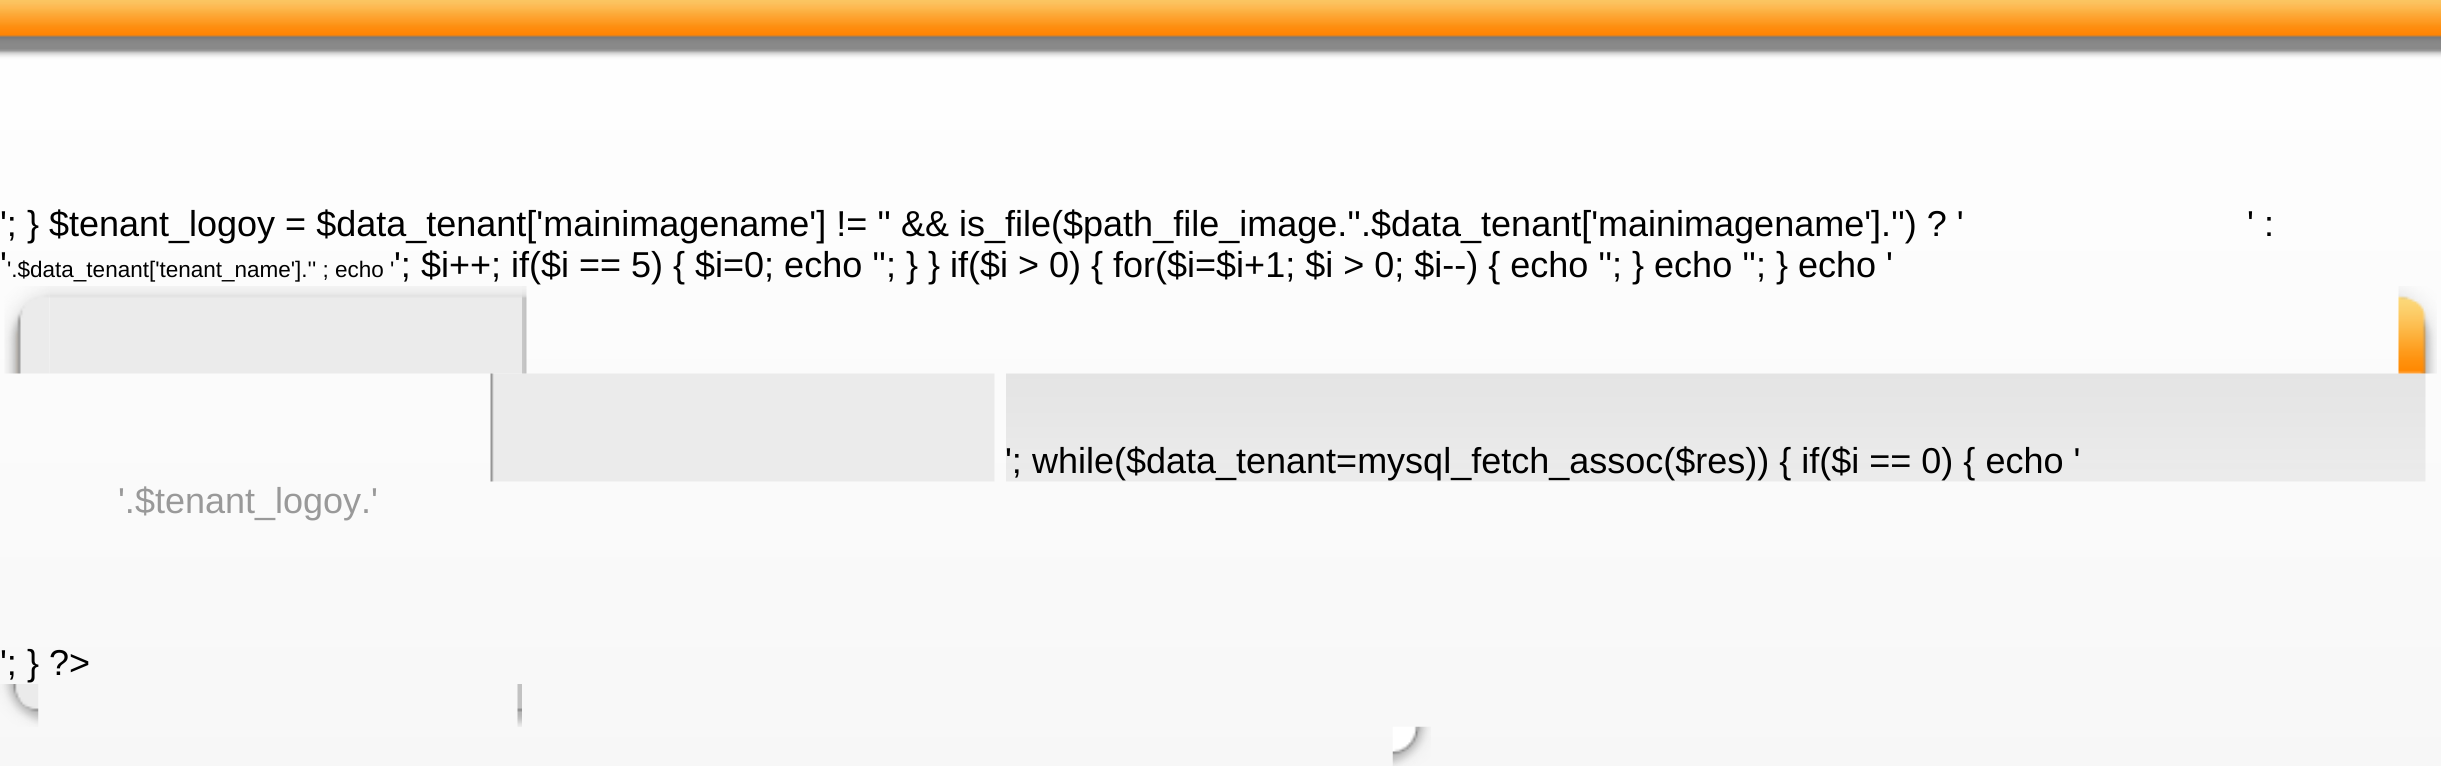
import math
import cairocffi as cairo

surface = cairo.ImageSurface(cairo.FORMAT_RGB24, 2441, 766)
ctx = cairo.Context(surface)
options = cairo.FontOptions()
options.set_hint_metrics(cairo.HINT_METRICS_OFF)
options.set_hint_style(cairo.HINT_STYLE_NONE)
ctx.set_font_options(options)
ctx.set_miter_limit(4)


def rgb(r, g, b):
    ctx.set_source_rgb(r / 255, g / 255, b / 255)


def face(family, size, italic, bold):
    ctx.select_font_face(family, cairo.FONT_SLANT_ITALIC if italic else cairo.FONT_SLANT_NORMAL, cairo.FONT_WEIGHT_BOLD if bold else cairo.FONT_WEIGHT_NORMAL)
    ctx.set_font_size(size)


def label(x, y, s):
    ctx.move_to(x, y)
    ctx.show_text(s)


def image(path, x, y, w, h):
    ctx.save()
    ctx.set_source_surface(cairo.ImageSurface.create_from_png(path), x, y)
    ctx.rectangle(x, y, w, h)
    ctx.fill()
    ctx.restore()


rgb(255, 255, 255)
ctx.paint()
image('image0.png', 0, 0, 2441, 766)
face('Liberation Sans', 36, 0, 0)
rgb(0, 0, 0)
label(0, 236, '\'; } $tenant_logoy = $data_tenant[\'mainimagename\'] != \'\' && is_file($path_file_image.\'\'.$data_tenant[\'mainimagename\'].\'\') ? \'')
label(2247, 236, '\' :')
label(0, 277, '\'')
label(394, 277, '\'; $i++; if($i == 5) { $i=0; echo \'\'; } } if($i > 0) { for($i=$i+1; $i > 0; $i--) { echo \'\'; } echo \'\'; } echo \'')
face('Liberation Sans', 22.5, 0, 0)
label(7, 277, '\'.$data_tenant[\'tenant_name\'].\'\' ; echo \'')
image('image2.png', 49, 286, 473, 88)
image('image1.png', 4, 286, 46, 88)
image('image5.png', 490, 373, 505, 109)
image('image3.png', 522, 286, 5, 88)
image('image6.png', 1006, 373, 1420, 109)
image('image4.png', 2398, 286, 39, 88)
face('Liberation Sans', 36, 0, 0)
label(1005, 473, '\'; while($data_tenant=mysql_fetch_assoc($res)) { if($i == 0) { echo \'')
rgb(153, 153, 153)
label(118, 513, '\'.$tenant_logoy.\'')
rgb(0, 0, 0)
label(0, 675, '\'; } ?>')
image('image7.png', 0, 684, 39, 43)
image('image8.png', 517, 684, 5, 43)
image('image9.png', 1392, 726, 39, 40)
surface.write_to_png('render.png')
